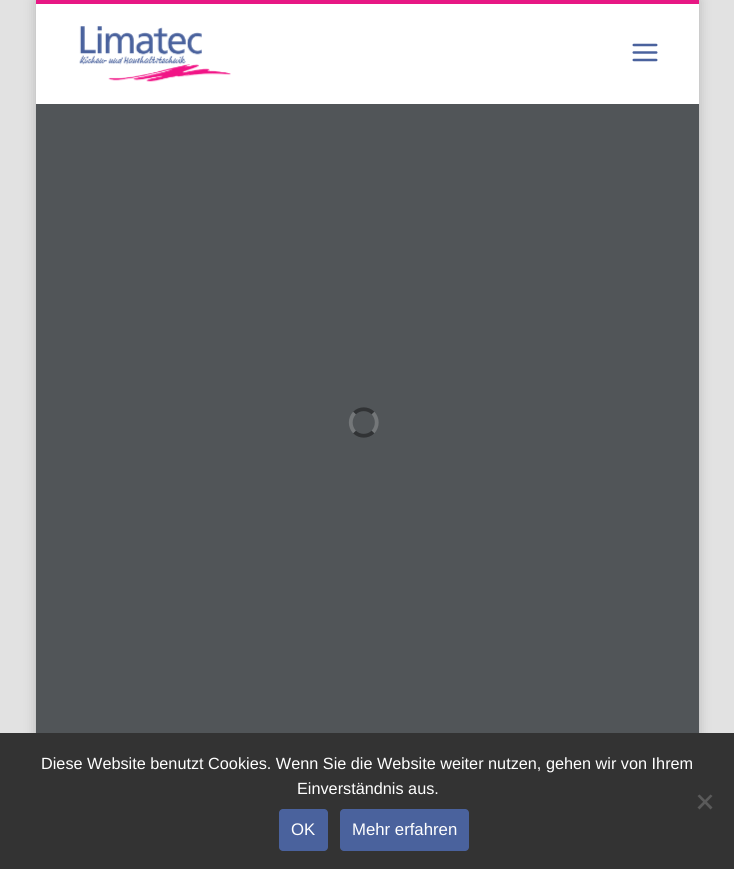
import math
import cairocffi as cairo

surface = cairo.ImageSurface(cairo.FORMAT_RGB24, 734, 869)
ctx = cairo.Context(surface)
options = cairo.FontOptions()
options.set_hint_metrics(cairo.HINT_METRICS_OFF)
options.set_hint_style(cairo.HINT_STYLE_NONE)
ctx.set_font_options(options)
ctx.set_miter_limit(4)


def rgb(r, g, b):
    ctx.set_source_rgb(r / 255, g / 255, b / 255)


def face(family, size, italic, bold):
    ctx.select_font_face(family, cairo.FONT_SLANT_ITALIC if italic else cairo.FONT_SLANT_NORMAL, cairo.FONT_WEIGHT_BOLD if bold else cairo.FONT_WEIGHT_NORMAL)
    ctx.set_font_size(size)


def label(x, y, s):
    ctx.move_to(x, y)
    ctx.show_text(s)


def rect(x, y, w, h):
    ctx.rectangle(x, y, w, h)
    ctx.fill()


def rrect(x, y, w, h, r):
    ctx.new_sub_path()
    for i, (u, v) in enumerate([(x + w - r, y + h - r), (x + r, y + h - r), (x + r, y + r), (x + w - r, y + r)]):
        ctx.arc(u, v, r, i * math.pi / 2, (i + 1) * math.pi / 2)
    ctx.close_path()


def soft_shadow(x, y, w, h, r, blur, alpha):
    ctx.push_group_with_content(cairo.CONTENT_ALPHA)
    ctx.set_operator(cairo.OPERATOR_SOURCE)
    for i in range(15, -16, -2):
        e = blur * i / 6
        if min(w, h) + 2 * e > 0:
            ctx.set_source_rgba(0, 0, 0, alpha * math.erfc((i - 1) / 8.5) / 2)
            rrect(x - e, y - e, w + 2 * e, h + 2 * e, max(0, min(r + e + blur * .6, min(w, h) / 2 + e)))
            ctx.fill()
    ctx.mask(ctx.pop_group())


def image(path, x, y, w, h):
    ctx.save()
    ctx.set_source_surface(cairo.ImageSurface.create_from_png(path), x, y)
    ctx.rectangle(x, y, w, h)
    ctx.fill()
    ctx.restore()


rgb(226, 226, 226)
ctx.paint()
rgb(0, 0, 0)
soft_shadow(36, 0, 663, 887, 0, 6, 0.2)
rgb(255, 255, 255)
rect(36, 4, 663, 100)
rgb(231, 23, 132)
rect(36, 0, 663, 4)
image('image0.png', 79, 26, 152, 56)
image('image1.png', 632, 43, 26, 19)
rgb(81, 85, 88)
rect(36, 104, 663, 629)
ctx.new_path()
ctx.move_to(354.5, 413)
ctx.curve_to(359.5, 408, 368, 408, 373, 413)
rgb(49, 51, 53)
ctx.set_line_width(3.8)
ctx.stroke()
ctx.new_path()
ctx.move_to(373, 413)
ctx.curve_to(378, 418.5, 378, 426.5, 373, 432)
ctx.set_source_rgba(1, 1, 1, 0.2)
ctx.stroke()
ctx.new_path()
ctx.move_to(373, 432)
ctx.curve_to(368, 437, 359.5, 437, 354.5, 432)
ctx.set_source_rgba(0, 0, 0, 0.4)
ctx.stroke()
ctx.new_path()
ctx.move_to(354.5, 432)
ctx.curve_to(349.5, 426.5, 349.5, 418.5, 354.5, 413)
ctx.set_source_rgba(1, 1, 1, 0.2)
ctx.stroke()
rgb(51, 51, 51)
rect(0, 733, 734, 136)
face('Liberation Sans', 16.25, 0, 0)
rgb(255, 255, 255)
label(41, 769, 'Diese Website benutzt Cookies. Wenn Sie die Website weiter nutzen, gehen wir von Ihrem')
label(297, 794, 'Einverständnis aus.')
rgb(90, 90, 90)
ctx.new_path()
ctx.move_to(710.5, 794.5)
ctx.line_to(712.5, 796)
ctx.line_to(699.5, 809.5)
ctx.line_to(697.5, 807.5)
ctx.close_path()
ctx.fill()
ctx.new_path()
ctx.move_to(697.5, 796)
ctx.line_to(699.5, 794.5)
ctx.line_to(712.5, 807.5)
ctx.line_to(710.5, 809.5)
ctx.close_path()
ctx.fill()
rgb(74, 98, 157)
rrect(279, 809, 49, 42, 4)
ctx.fill()
face('Liberation Sans', 16.75, 0, 0)
rgb(255, 255, 255)
label(291, 835, 'OK')
rgb(74, 98, 157)
rrect(340, 809, 129, 42, 4)
ctx.fill()
rgb(255, 255, 255)
label(352, 835, 'Mehr erfahren')
surface.write_to_png('render.png')
